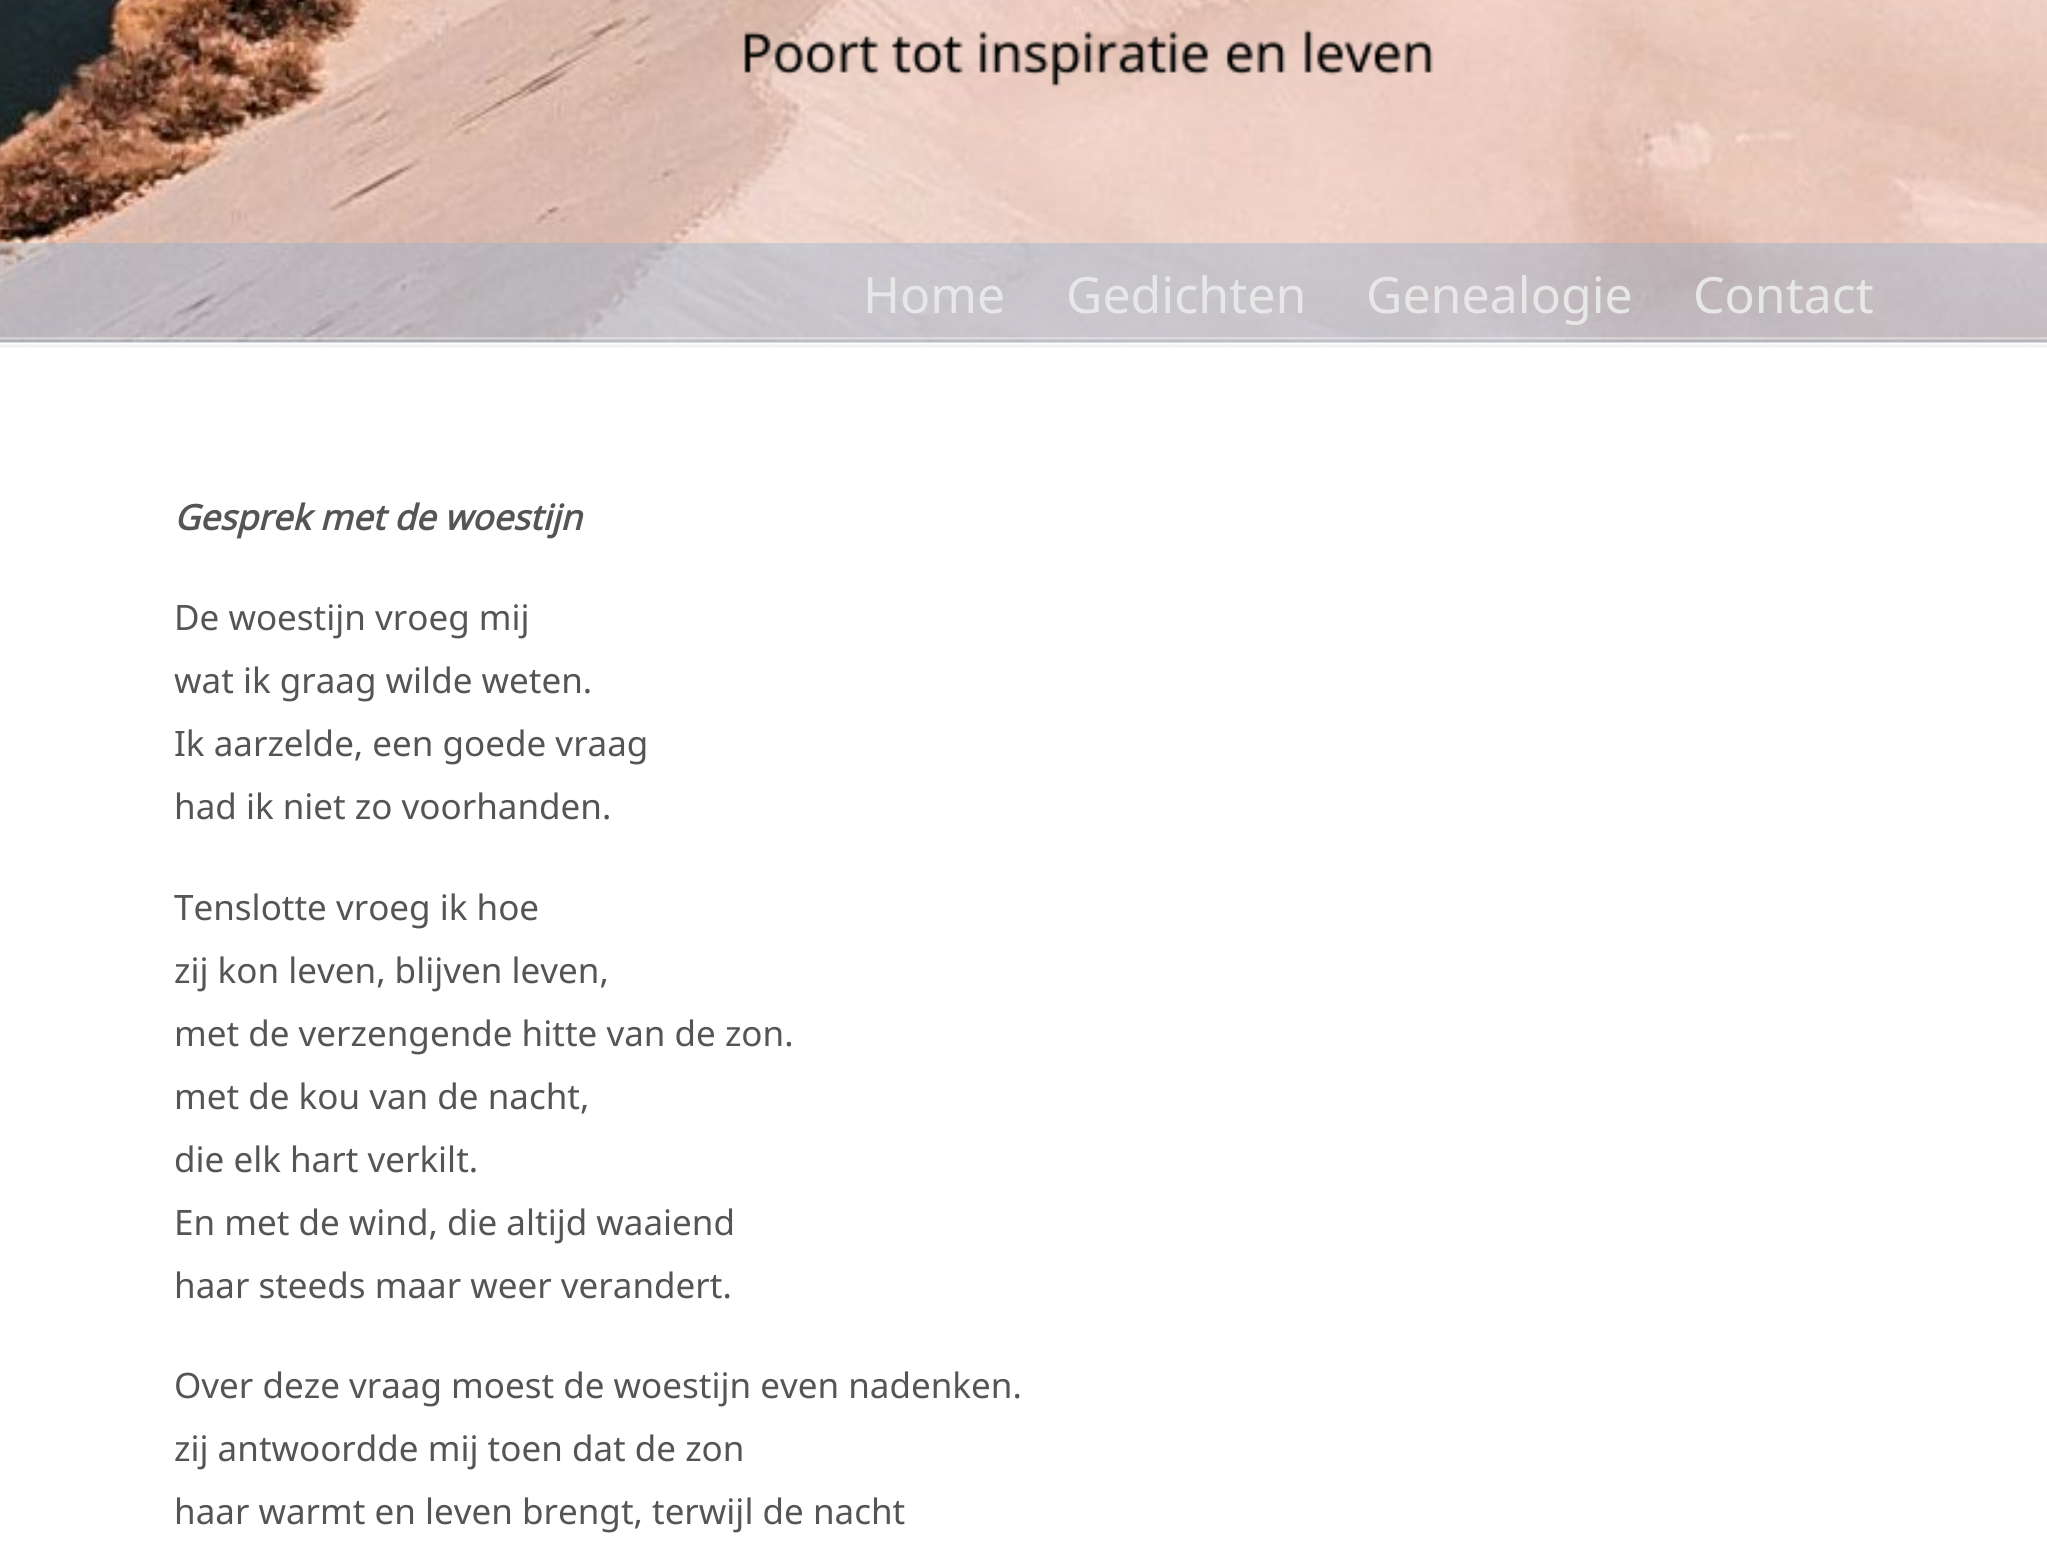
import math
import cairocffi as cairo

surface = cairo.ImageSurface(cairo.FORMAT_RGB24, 2047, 1545)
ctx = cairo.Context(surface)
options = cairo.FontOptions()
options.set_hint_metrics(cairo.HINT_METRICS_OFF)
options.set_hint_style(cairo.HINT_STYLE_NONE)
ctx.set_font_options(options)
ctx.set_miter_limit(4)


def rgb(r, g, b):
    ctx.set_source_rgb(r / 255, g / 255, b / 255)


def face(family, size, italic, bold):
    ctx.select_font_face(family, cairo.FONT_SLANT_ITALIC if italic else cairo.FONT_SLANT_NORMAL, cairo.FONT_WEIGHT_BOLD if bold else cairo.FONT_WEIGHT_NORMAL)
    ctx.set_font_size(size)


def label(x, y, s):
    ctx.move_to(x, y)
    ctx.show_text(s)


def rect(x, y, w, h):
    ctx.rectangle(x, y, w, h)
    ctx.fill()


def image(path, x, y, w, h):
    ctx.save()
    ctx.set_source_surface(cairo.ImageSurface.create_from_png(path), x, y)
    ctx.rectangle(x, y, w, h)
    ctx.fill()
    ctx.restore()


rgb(255, 255, 255)
ctx.paint()
rgb(252, 252, 252)
rect(0, 342, 2047, 1)
image('image0.png', 0, 0, 2047, 342)
image('image1.png', 744, 29, 690, 59)
ctx.set_source_rgba(0.573, 0.694, 0.82, 0.4)
rect(0, 243, 2047, 100)
face('Noto Sans', 50, 0, 0)
rgb(231, 231, 231)
label(863, 313, 'Home')
label(1066, 313, 'Gedichten')
label(1366, 313, 'Genealogie')
label(1693, 313, 'Contact')
image('image2.png', 0, 337, 2047, 5)
image('image3.png', 0, 343, 2047, 5)
face('Noto Sans', 35, 1, 1)
rgb(85, 85, 85)
label(174, 530, 'Gesprek met de woestijn')
face('Noto Sans', 35, 0, 0)
label(174, 630, 'De woestijn vroeg mij')
label(174, 693, 'wat ik graag wilde weten.')
label(174, 756, 'Ik aarzelde, een goede vraag')
label(174, 819, 'had ik niet zo voorhanden.')
label(174, 920, 'Tenslotte vroeg ik hoe')
label(174, 983, 'zij kon leven, blijven leven,')
label(174, 1046, 'met de verzengende hitte van de zon.')
label(174, 1109, 'met de kou van de nacht,')
label(174, 1172, 'die elk hart verkilt.')
label(174, 1235, 'En met de wind, die altijd waaiend')
label(174, 1298, 'haar steeds maar weer verandert.')
label(174, 1398, 'Over deze vraag moest de woestijn even nadenken.')
label(174, 1461, 'zij antwoordde mij toen dat de zon')
label(174, 1524, 'haar warmt en leven brengt, terwijl de nacht')
surface.write_to_png('render.png')
